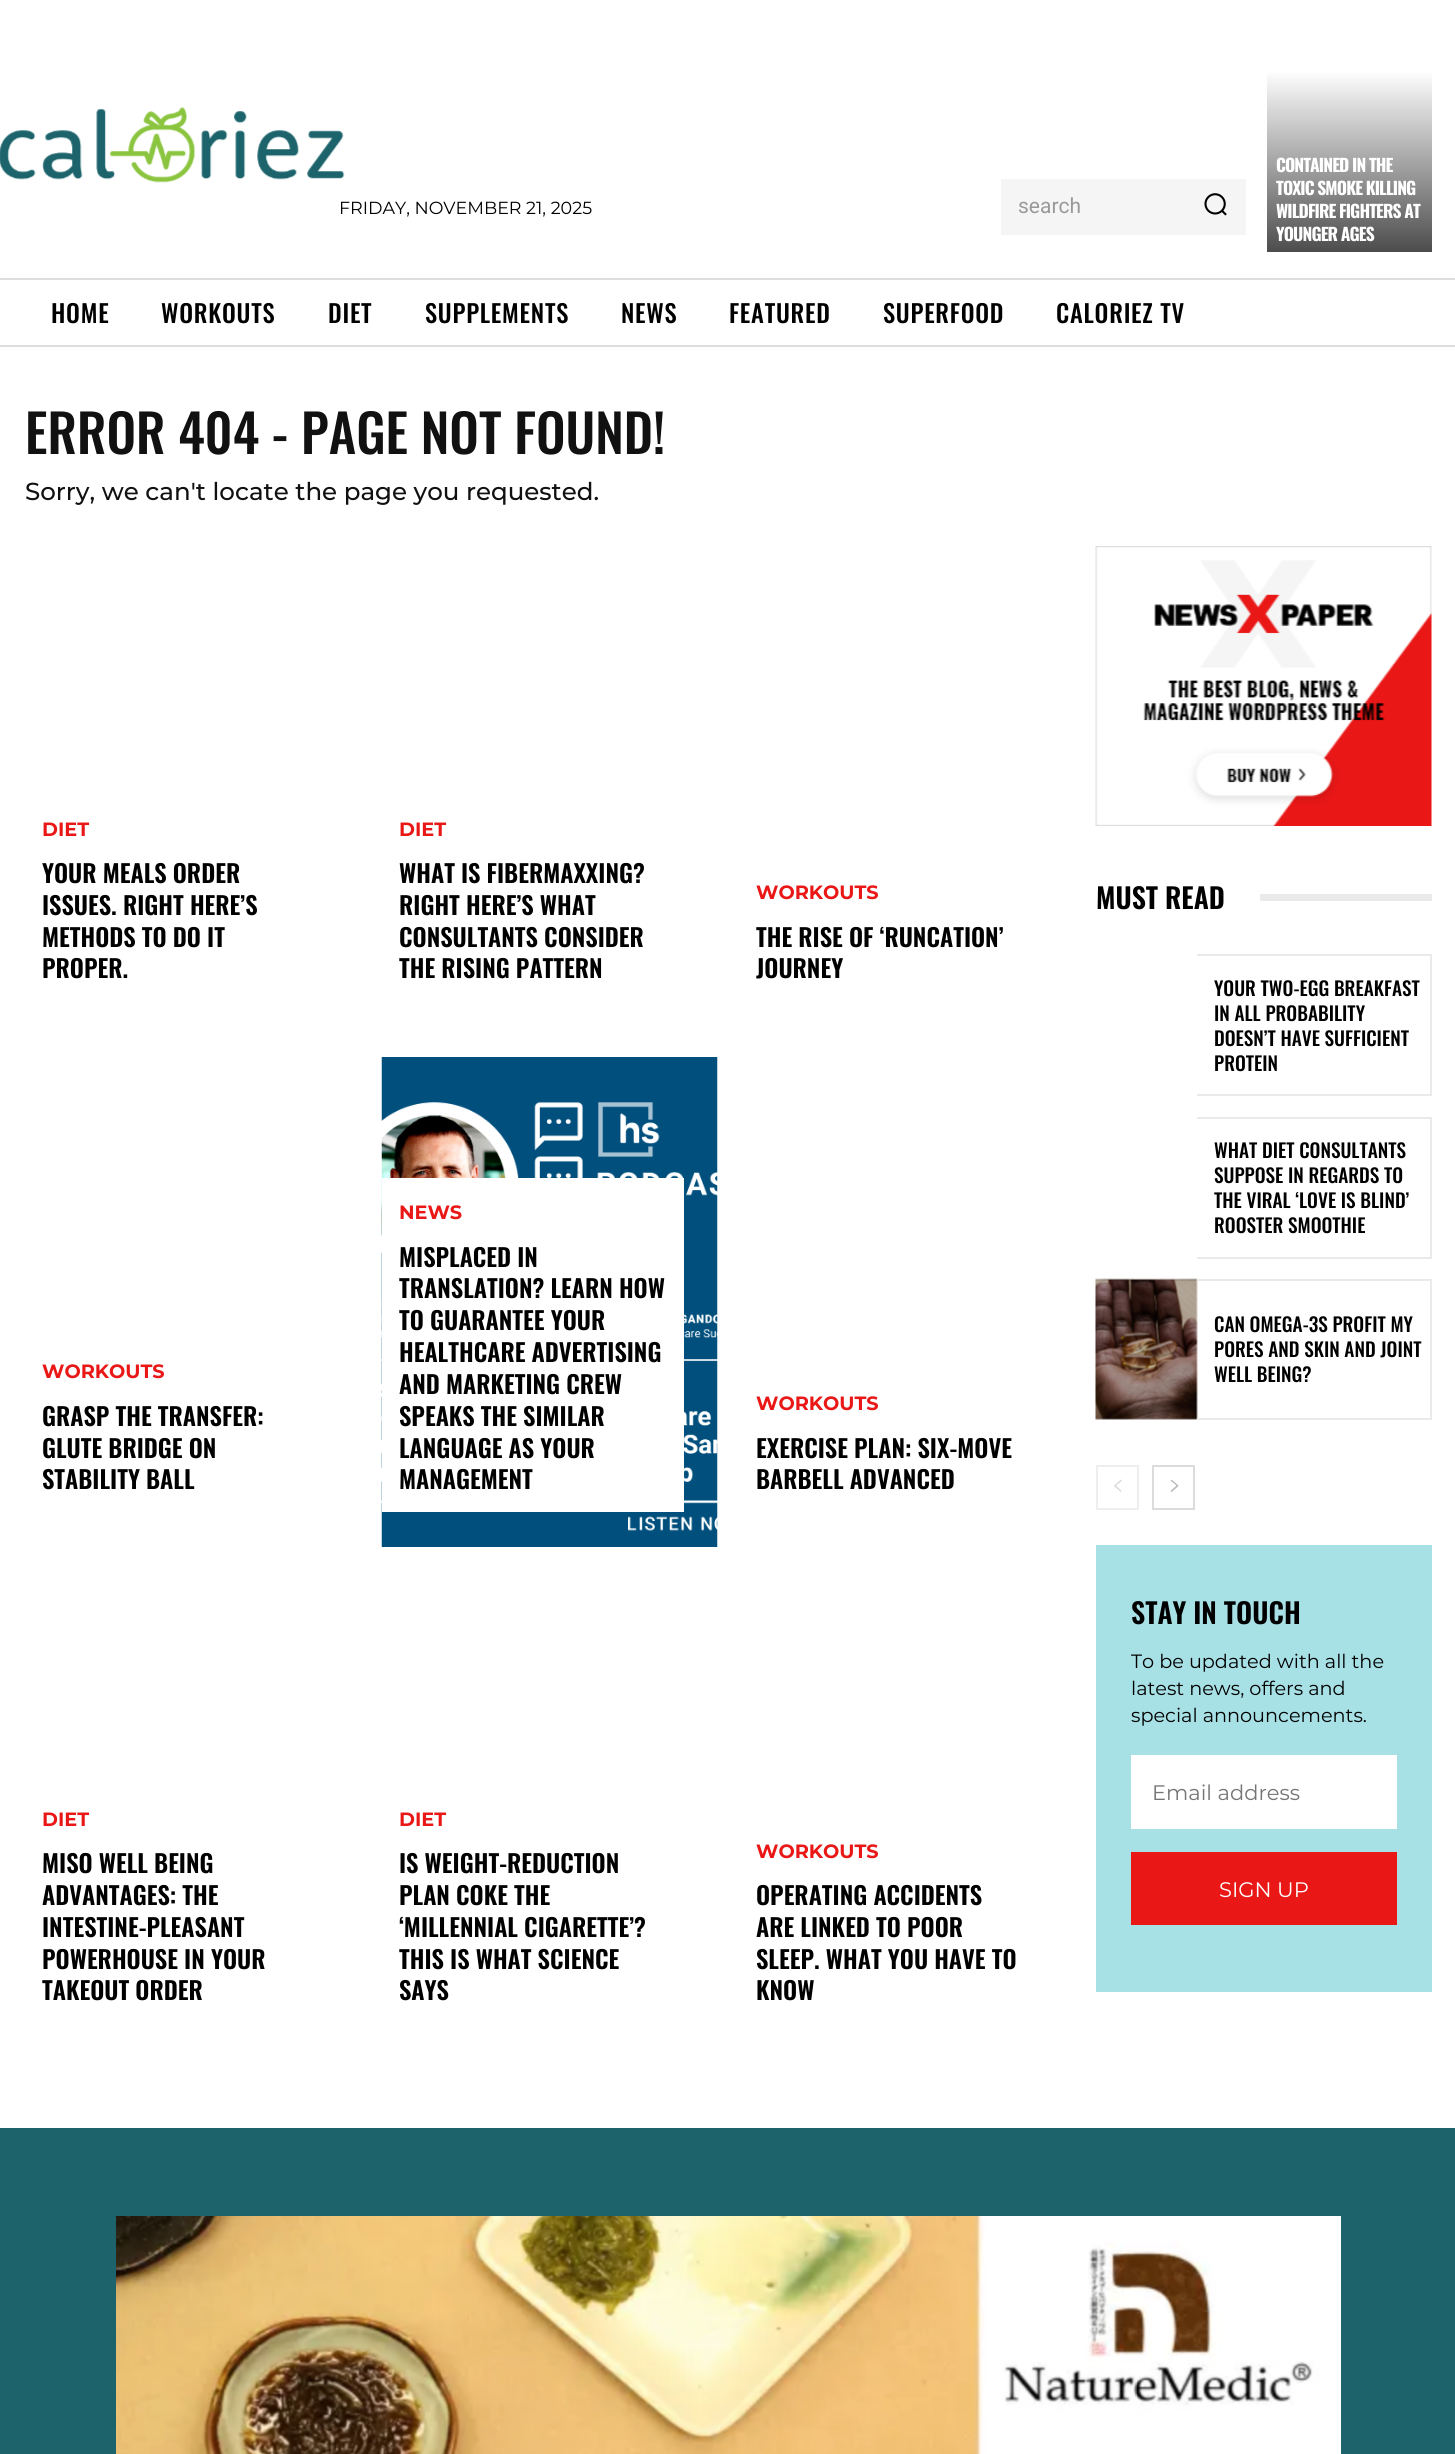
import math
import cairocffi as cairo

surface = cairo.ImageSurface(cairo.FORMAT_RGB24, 1455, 2454)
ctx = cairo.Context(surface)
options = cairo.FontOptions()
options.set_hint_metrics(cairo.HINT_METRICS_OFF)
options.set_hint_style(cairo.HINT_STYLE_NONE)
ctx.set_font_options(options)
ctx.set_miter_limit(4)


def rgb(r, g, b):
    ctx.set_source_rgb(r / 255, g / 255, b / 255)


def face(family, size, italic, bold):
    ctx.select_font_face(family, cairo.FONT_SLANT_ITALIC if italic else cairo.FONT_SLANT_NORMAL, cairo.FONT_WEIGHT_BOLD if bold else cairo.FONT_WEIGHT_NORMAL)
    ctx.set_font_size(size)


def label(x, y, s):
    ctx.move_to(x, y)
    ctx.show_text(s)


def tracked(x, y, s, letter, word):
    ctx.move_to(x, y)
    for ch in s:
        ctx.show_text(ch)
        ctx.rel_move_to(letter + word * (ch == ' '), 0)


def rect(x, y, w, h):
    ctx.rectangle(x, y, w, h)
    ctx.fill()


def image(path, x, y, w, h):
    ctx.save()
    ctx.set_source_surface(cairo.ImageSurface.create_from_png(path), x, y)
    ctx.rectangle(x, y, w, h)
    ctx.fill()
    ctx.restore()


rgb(255, 255, 255)
ctx.paint()
image('image0.png', 0, 107, 345, 76)
face('Montserrat', 17.5, 0, 0)
rgb(0, 0, 0)
label(339, 214, 'FRIDAY, NOVEMBER 21, 2025')
rgb(245, 245, 245)
rect(1001, 179, 245, 56)
face('Roboto', 21, 0, 0)
rgb(153, 153, 153)
label(1018, 213, 'search')
image('image1.png', 1204, 193, 23, 23)
gradient = cairo.LinearGradient(1349, 252, 1349, 70)
gradient.add_color_stop_rgba(0, 0.302, 0.302, 0.302, 1)
gradient.add_color_stop_rgba(1, 1, 1, 1, 1)
ctx.set_source(gradient)
rect(1267, 73, 165, 179)
face('Oswald', 17.5, 0, 1)
rgb(255, 255, 255)
tracked(1276, 172, 'CONTAINED IN THE', -0.9, 0)
tracked(1276, 195, 'TOXIC SMOKE KILLING', -0.9, 0)
tracked(1276, 218, 'WILDFIRE FIGHTERS AT', -0.9, 0)
tracked(1276, 241, 'YOUNGER AGES', -0.9, 0)
rgb(221, 221, 221)
rect(0, 278, 1455, 2)
rect(0, 345, 1455, 2)
face('Oswald Medium', 24.5, 0, 0)
rgb(0, 0, 0)
tracked(51, 323, 'HOME', 0.75, 0)
tracked(161, 323, 'WORKOUTS', 0.75, 0)
tracked(328, 323, 'DIET', 0.75, 0)
tracked(425, 323, 'SUPPLEMENTS', 0.75, 0)
tracked(621, 323, 'NEWS', 0.75, 0)
tracked(729, 323, 'FEATURED', 0.75, 0)
tracked(883, 323, 'SUPERFOOD', 0.75, 0)
tracked(1056, 323, 'CALORIEZ TV', 0.75, 0)
face('Oswald Medium', 52.5, 0, 0)
rgb(17, 17, 17)
label(25, 454, 'ERROR 404 - PAGE NOT FOUND!')
face('Montserrat Medium', 24.5, 0, 0)
label(25, 500, 'Sorry, we can\'t locate the page you requested.')
face('Montserrat', 19.25, 0, 1)
rgb(234, 23, 23)
label(42, 836, 'DIET')
face('Oswald SemiBold', 24.5, 0, 0)
rgb(0, 0, 0)
label(42, 883, 'YOUR MEALS ORDER')
label(42, 915, 'ISSUES. RIGHT HERE’S')
label(42, 947, 'METHODS TO DO IT')
label(42, 978, 'PROPER.')
face('Montserrat', 19.25, 0, 1)
rgb(234, 23, 23)
label(42, 1378, 'WORKOUTS')
face('Oswald SemiBold', 24.5, 0, 0)
rgb(0, 0, 0)
label(42, 1426, 'GRASP THE TRANSFER:')
label(42, 1458, 'GLUTE BRIDGE ON')
label(42, 1489, 'STABILITY BALL')
face('Montserrat', 19.25, 0, 1)
rgb(234, 23, 23)
label(42, 1826, 'DIET')
face('Oswald SemiBold', 24.5, 0, 0)
rgb(0, 0, 0)
label(42, 1873, 'MISO WELL BEING')
label(42, 1905, 'ADVANTAGES: THE')
label(42, 1937, 'INTESTINE-PLEASANT')
label(42, 1969, 'POWERHOUSE IN YOUR')
label(42, 2000, 'TAKEOUT ORDER')
face('Montserrat', 19.25, 0, 1)
rgb(234, 23, 23)
label(399, 836, 'DIET')
face('Oswald SemiBold', 24.5, 0, 0)
rgb(0, 0, 0)
label(399, 883, 'WHAT IS FIBERMAXXING?')
label(399, 915, 'RIGHT HERE’S WHAT')
label(399, 947, 'CONSULTANTS CONSIDER')
label(399, 978, 'THE RISING PATTERN')
image('image2.png', 381, 1057, 337, 490)
rgb(255, 255, 255)
rect(382, 1178, 302, 334)
face('Montserrat', 19.25, 0, 1)
rgb(234, 23, 23)
label(399, 1219, 'NEWS')
face('Oswald SemiBold', 24.5, 0, 0)
rgb(0, 0, 0)
label(399, 1267, 'MISPLACED IN')
label(399, 1298, 'TRANSLATION? LEARN HOW')
label(399, 1330, 'TO GUARANTEE YOUR')
label(399, 1362, 'HEALTHCARE ADVERTISING')
label(399, 1394, 'AND MARKETING CREW')
label(399, 1426, 'SPEAKS THE SIMILAR')
label(399, 1458, 'LANGUAGE AS YOUR')
label(399, 1489, 'MANAGEMENT')
face('Montserrat', 19.25, 0, 1)
rgb(234, 23, 23)
label(399, 1826, 'DIET')
face('Oswald SemiBold', 24.5, 0, 0)
rgb(0, 0, 0)
label(399, 1873, 'IS WEIGHT-REDUCTION')
label(399, 1905, 'PLAN COKE THE')
label(399, 1937, '‘MILLENNIAL CIGARETTE’?')
label(399, 1969, 'THIS IS WHAT SCIENCE')
label(399, 2000, 'SAYS')
face('Montserrat', 19.25, 0, 1)
rgb(234, 23, 23)
label(756, 899, 'WORKOUTS')
face('Oswald SemiBold', 24.5, 0, 0)
rgb(0, 0, 0)
label(756, 947, 'THE RISE OF ‘RUNCATION’')
label(756, 978, 'JOURNEY')
face('Montserrat', 19.25, 0, 1)
rgb(234, 23, 23)
label(756, 1410, 'WORKOUTS')
face('Oswald SemiBold', 24.5, 0, 0)
rgb(0, 0, 0)
label(756, 1458, 'EXERCISE PLAN: SIX-MOVE')
label(756, 1489, 'BARBELL ADVANCED')
face('Montserrat', 19.25, 0, 1)
rgb(234, 23, 23)
label(756, 1858, 'WORKOUTS')
face('Oswald SemiBold', 24.5, 0, 0)
rgb(0, 0, 0)
label(756, 1905, 'OPERATING ACCIDENTS')
label(756, 1937, 'ARE LINKED TO POOR')
label(756, 1969, 'SLEEP. WHAT YOU HAVE TO')
label(756, 2000, 'KNOW')
image('image3.png', 1095, 546, 337, 280)
face('Oswald SemiBold', 28, 0, 0)
label(1096, 909, 'MUST READ')
rgb(234, 234, 234)
rect(1260, 894, 172, 7)
rect(1197, 954, 235, 2)
rect(1430, 954, 2, 142)
rect(1197, 1094, 235, 2)
face('Oswald Medium', 19.25, 0, 0)
rgb(0, 0, 0)
label(1214, 996, 'YOUR TWO-EGG BREAKFAST')
label(1214, 1021, 'IN ALL PROBABILITY')
label(1214, 1046, 'DOESN’T HAVE SUFFICIENT')
label(1214, 1071, 'PROTEIN')
rgb(234, 234, 234)
rect(1197, 1117, 235, 2)
rect(1430, 1117, 2, 141)
rect(1197, 1257, 235, 2)
rgb(0, 0, 0)
label(1214, 1158, 'WHAT DIET CONSULTANTS')
label(1214, 1183, 'SUPPOSE IN REGARDS TO')
label(1214, 1208, 'THE VIRAL ‘LOVE IS BLIND’')
label(1214, 1233, 'ROOSTER SMOOTHIE')
image('image4.png', 1095, 1278, 103, 142)
rgb(234, 234, 234)
rect(1197, 1279, 235, 2)
rect(1430, 1279, 2, 140)
rect(1197, 1418, 235, 2)
rgb(0, 0, 0)
label(1214, 1332, 'CAN OMEGA-3S PROFIT MY')
label(1214, 1357, 'PORES AND SKIN AND JOINT')
label(1214, 1382, 'WELL BEING?')
ctx.rectangle(1097, 1466, 41, 43)
rgb(238, 238, 238)
ctx.stroke()
image('image5.png', 1114, 1479, 8, 13)
ctx.rectangle(1153, 1466, 41, 43)
rgb(220, 220, 220)
ctx.stroke()
image('image6.png', 1170, 1479, 9, 13)
rgb(167, 224, 229)
rect(1096, 1545, 336, 447)
face('Oswald SemiBold', 28, 0, 0)
rgb(0, 0, 0)
label(1131, 1624, 'STAY IN TOUCH')
face('Montserrat', 19.25, 0, 0)
label(1131, 1668, 'To be updated with all the')
label(1131, 1695, 'latest news, offers and')
label(1131, 1722, 'special announcements.')
rgb(255, 255, 255)
rect(1131, 1755, 266, 74)
face('Montserrat', 21, 0, 0)
rgb(117, 117, 117)
label(1152, 1800, 'Email address')
rgb(234, 23, 23)
rect(1131, 1852, 266, 73)
rgb(255, 255, 255)
label(1219, 1897, 'SIGN UP')
rgb(28, 99, 107)
rect(0, 2128, 1455, 326)
image('image7.png', 116, 2216, 1225, 238)
surface.write_to_png('render.png')
